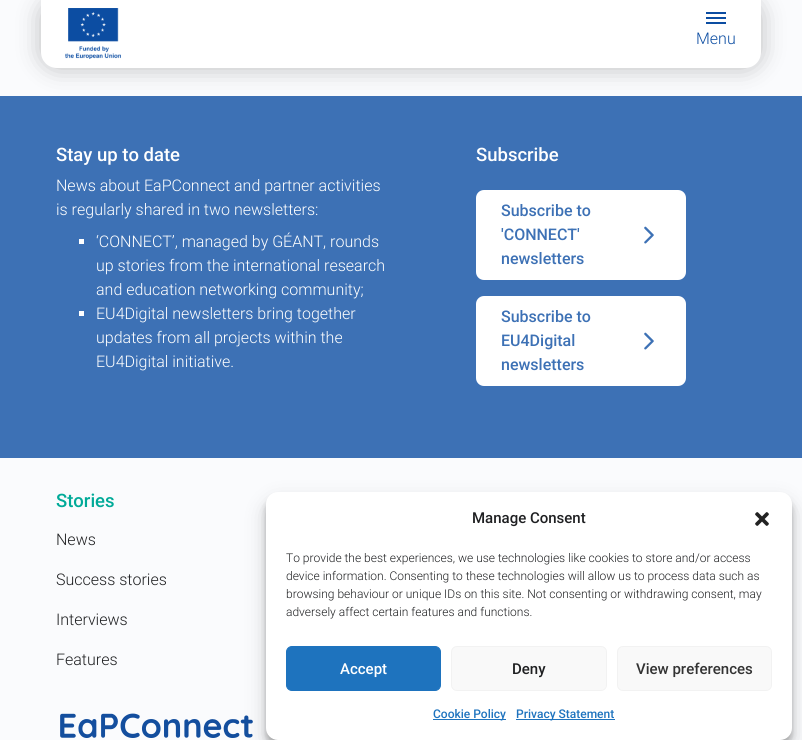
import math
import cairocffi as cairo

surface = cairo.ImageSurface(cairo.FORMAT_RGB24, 802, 740)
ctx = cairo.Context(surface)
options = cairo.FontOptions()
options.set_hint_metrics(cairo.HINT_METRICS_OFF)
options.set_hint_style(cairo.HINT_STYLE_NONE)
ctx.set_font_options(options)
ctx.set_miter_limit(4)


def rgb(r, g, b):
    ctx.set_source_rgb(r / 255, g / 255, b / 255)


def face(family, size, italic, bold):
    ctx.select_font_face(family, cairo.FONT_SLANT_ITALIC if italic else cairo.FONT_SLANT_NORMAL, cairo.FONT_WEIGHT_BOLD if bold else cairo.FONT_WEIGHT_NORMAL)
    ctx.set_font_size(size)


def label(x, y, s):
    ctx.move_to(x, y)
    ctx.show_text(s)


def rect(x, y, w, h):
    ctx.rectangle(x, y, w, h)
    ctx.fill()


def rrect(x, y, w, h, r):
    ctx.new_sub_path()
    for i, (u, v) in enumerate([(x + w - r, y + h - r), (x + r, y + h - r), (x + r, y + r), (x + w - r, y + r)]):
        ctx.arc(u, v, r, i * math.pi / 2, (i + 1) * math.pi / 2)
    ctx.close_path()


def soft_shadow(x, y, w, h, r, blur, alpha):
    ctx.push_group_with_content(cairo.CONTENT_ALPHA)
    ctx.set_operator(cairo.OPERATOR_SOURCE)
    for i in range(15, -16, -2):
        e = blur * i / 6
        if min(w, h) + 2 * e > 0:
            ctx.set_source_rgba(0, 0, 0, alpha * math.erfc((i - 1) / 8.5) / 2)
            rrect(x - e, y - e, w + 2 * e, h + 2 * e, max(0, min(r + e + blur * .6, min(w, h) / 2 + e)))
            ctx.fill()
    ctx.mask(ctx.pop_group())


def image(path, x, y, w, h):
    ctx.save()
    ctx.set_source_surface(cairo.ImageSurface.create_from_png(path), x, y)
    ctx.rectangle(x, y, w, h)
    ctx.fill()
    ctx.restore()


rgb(61, 113, 181)
ctx.paint()
rgb(250, 251, 253)
rect(0, 0, 802, 96)
rgb(0, 0, 0)
soft_shadow(41, 0, 720, 68, 16, 12, 0.25)
rgb(255, 255, 255)
ctx.new_path()
ctx.move_to(41, 0)
ctx.line_to(761, 0)
ctx.line_to(761, 52)
ctx.curve_to(761, 61, 754, 68, 745, 68)
ctx.line_to(57, 68)
ctx.curve_to(48, 68, 41, 61, 41, 52)
ctx.close_path()
ctx.fill()
image('image0.png', 65, 8, 56, 51)
rgb(12, 77, 162)
rect(706, 17, 20, 2)
rect(706, 12, 20, 2)
rect(706, 22, 20, 2)
face('Roboto Light', 16, 0, 0)
label(696, 44, 'Menu')
face('Roboto Medium', 18.5, 0, 0)
rgb(255, 255, 255)
label(56, 161, 'Stay up to date')
face('Roboto Light', 16, 0, 0)
label(56, 191, 'News about EaPConnect and partner activities')
label(56, 215, 'is regularly shared in two newsletters:')
rect(79, 239, 5, 5)
label(96, 247, '‘CONNECT’, managed by GÉANT, rounds')
label(96, 271, 'up stories from the international research')
label(96, 295, 'and education networking community;')
rect(79, 311, 5, 5)
label(96, 319, 'EU4Digital newsletters bring together')
label(96, 343, 'updates from all projects within the')
label(96, 367, 'EU4Digital initiative.')
face('Roboto Medium', 18.5, 0, 0)
label(476, 161, 'Subscribe')
rrect(476, 190, 210, 90, 8)
ctx.fill()
face('Roboto Medium', 16, 0, 0)
rgb(61, 113, 181)
label(501, 216, 'Subscribe to')
label(501, 240, '\'CONNECT\'')
image('image1.png', 644, 226, 10, 18)
label(501, 264, 'newsletters')
rgb(255, 255, 255)
rrect(476, 296, 210, 90, 8)
ctx.fill()
rgb(61, 113, 181)
label(501, 322, 'Subscribe to')
label(501, 346, 'EU4Digital')
image('image1.png', 644, 332, 10, 18)
label(501, 370, 'newsletters')
rgb(250, 251, 253)
rect(0, 458, 802, 282)
face('Roboto Medium', 18.5, 0, 0)
rgb(0, 170, 152)
label(56, 507, 'Stories')
face('Roboto Light', 16, 0, 0)
rgb(31, 32, 34)
label(56, 545, 'News')
label(56, 585, 'Success stories')
label(56, 625, 'Interviews')
label(56, 665, 'Features')
image('image2.png', 60, 713, 193, 25)
rgb(0, 0, 0)
soft_shadow(266, 498, 526, 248, 12, 3, 0.23)
soft_shadow(266, 502, 526, 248, 12, 10, 0.19)
rgb(255, 255, 255)
rrect(266, 492, 526, 248, 12)
ctx.fill()
face('Roboto Medium', 15, 0, 0)
rgb(31, 32, 34)
label(472, 523, 'Manage Consent')
image('image3.png', 755, 512, 14, 14)
face('Roboto Light', 12, 0, 0)
label(286, 562, 'To provide the best experiences, we use technologies like cookies to store and/or access')
label(286, 580, 'device information. Consenting to these technologies will allow us to process data such as')
label(286, 598, 'browsing behaviour or unique IDs on this site. Not consenting or withdrawing consent, may')
label(286, 616, 'adversely affect certain features and functions.')
rgb(30, 115, 190)
rrect(286.5, 646.5, 154, 44, 5.5)
ctx.fill_preserve()
ctx.set_line_width(1)
ctx.stroke()
face('Roboto Medium', 15, 0, 0)
rgb(255, 255, 255)
label(340, 674, 'Accept')
rgb(249, 249, 249)
rrect(451.5, 646.5, 155, 44, 5.5)
ctx.fill_preserve()
rgb(242, 242, 242)
ctx.stroke()
rgb(31, 32, 34)
label(512, 674, 'Deny')
rgb(249, 249, 249)
rrect(617.5, 646.5, 154, 44, 5.5)
ctx.fill_preserve()
rgb(242, 242, 242)
ctx.stroke()
rgb(51, 51, 51)
label(636, 674, 'View preferences')
rgb(30, 115, 190)
rect(433, 719, 73, 1)
face('Roboto Medium', 12, 0, 0)
label(433, 718, 'Cookie Policy')
rect(516, 719, 99, 1)
label(516, 718, 'Privacy Statement')
surface.write_to_png('render.png')
